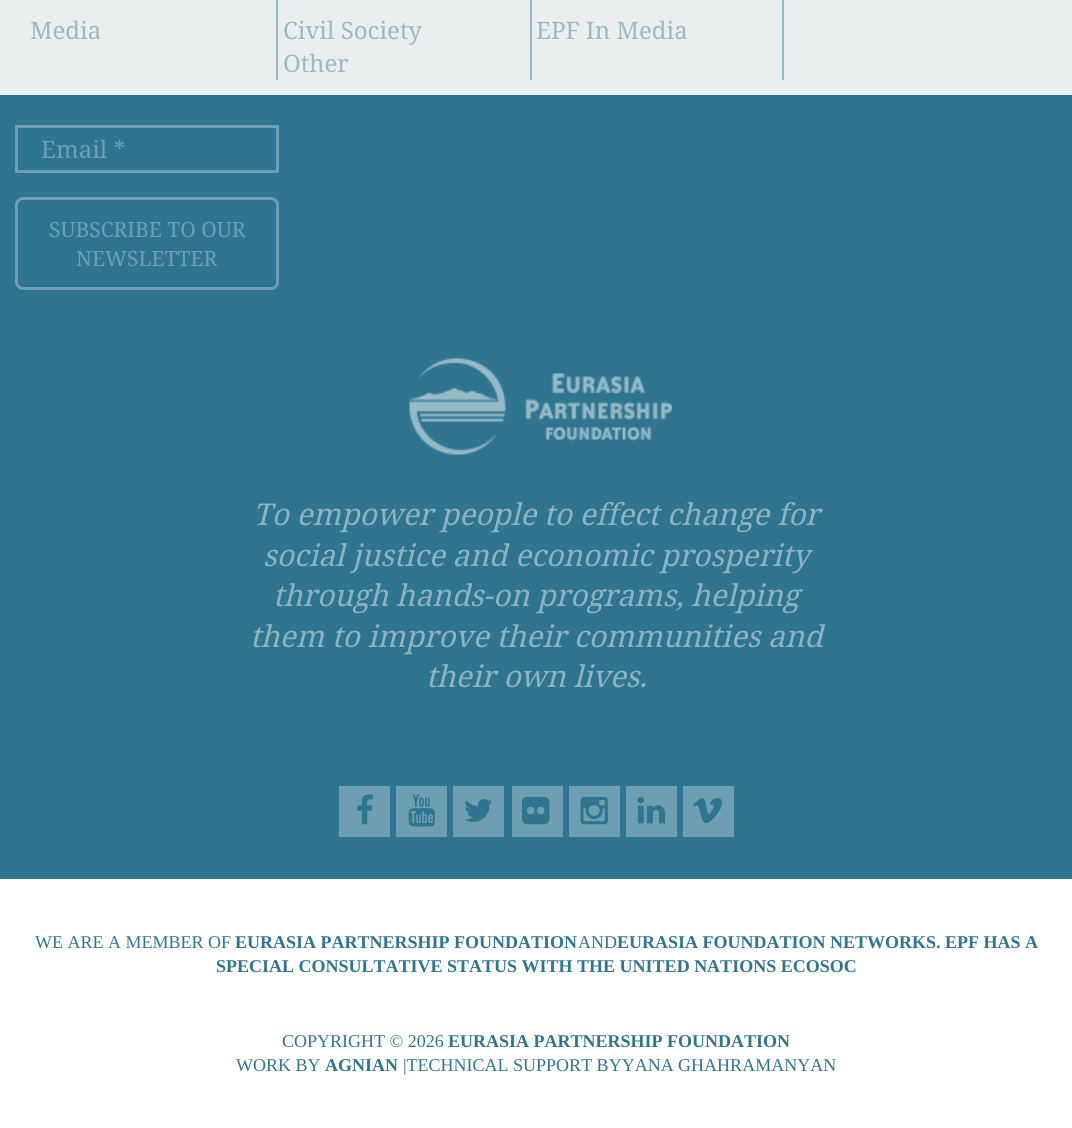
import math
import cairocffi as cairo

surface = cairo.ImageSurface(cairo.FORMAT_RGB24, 1072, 1128)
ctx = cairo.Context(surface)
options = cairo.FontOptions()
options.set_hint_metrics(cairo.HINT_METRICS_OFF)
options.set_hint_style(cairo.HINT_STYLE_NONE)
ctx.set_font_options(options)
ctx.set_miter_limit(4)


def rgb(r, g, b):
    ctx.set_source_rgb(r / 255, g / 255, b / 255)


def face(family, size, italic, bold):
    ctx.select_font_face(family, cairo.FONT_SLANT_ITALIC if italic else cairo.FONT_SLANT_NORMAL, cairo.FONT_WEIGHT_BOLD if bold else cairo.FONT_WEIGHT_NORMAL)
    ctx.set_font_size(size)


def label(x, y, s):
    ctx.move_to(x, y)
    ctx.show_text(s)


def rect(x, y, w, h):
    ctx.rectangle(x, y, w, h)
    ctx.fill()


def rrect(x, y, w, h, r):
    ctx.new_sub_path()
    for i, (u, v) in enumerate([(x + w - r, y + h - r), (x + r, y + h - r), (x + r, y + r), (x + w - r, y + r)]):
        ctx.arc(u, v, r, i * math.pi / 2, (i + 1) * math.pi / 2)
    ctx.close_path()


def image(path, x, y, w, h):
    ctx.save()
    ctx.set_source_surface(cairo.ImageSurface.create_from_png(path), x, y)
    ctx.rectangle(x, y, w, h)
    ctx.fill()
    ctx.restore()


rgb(255, 255, 255)
ctx.paint()
rgb(234, 238, 239)
rect(0, 0, 1072, 95)
face('Noto Serif Armenian', 24, 0, 0)
rgb(151, 186, 199)
label(30, 39, 'Media')
rect(276, 0, 2, 80)
label(283, 39, 'Civil Society')
label(283, 72, 'Other')
rect(530, 0, 2, 80)
label(536, 39, 'EPF In Media')
rect(782, 0, 2, 80)
rgb(47, 117, 143)
rect(0, 95, 1072, 784)
ctx.rectangle(16.5, 126.5, 261, 45)
rgb(109, 158, 177)
ctx.set_line_width(3)
ctx.stroke()
label(41, 158, 'Email *')
rrect(16.5, 198.5, 261, 90, 6.5)
ctx.stroke()
face('Noto Serif Armenian', 21, 0, 0)
label(49, 237, 'SUBSCRIBE TO OUR')
label(76, 266, 'NEWSLETTER')
image('image0.png', 409, 358, 263, 97)
face('Noto Serif Armenian', 30, 1, 0)
rgb(141, 179, 193)
label(253, 525, 'To empower people to effect change for')
label(263, 566, 'social justice and economic prosperity')
label(273, 606, 'through hands-on programs, helping')
label(250, 647, 'them to improve their communities and')
label(426, 687, 'their own lives.')
rgb(109, 158, 177)
rect(339, 786, 51, 51)
image('image1.png', 357, 794, 16, 31)
rect(396, 786, 51, 51)
image('image2.png', 408, 794, 27, 33)
rect(453, 786, 51, 51)
image('image3.png', 464, 799, 28, 23)
rect(512, 786, 51, 51)
image('image4.png', 522, 796, 28, 29)
rect(569, 786, 51, 51)
image('image5.png', 580, 796, 28, 29)
rect(626, 786, 51, 51)
image('image6.png', 637, 797, 28, 27)
rect(683, 786, 51, 51)
image('image7.png', 693, 798, 29, 26)
face('Liberation Serif', 18, 0, 0)
rgb(47, 117, 143)
label(35, 948, 'WE ARE A MEMBER OF')
face('Liberation Serif', 18, 0, 1)
label(235, 948, 'EURASIA PARTNERSHIP FOUNDATION')
face('Liberation Serif', 18, 0, 0)
label(578, 948, 'AND')
face('Liberation Serif', 18, 0, 1)
label(617, 948, 'EURASIA FOUNDATION NETWORKS. EPF HAS A')
label(216, 972, 'SPECIAL CONSULTATIVE STATUS WITH THE UNITED NATIONS ECOSOC')
face('Liberation Serif', 18, 0, 0)
label(282, 1047, 'COPYRIGHT © 2026')
face('Liberation Serif', 18, 0, 1)
label(448, 1047, 'EURASIA PARTNERSHIP FOUNDATION')
face('Liberation Serif', 18, 0, 0)
label(236, 1071, 'WORK BY')
face('Liberation Serif', 18, 0, 1)
label(325, 1071, 'AGNIAN')
face('Liberation Serif', 18, 0, 0)
label(403, 1071, '|TECHNICAL SUPPORT BYYANA GHAHRAMANYAN')
surface.write_to_png('render.png')
